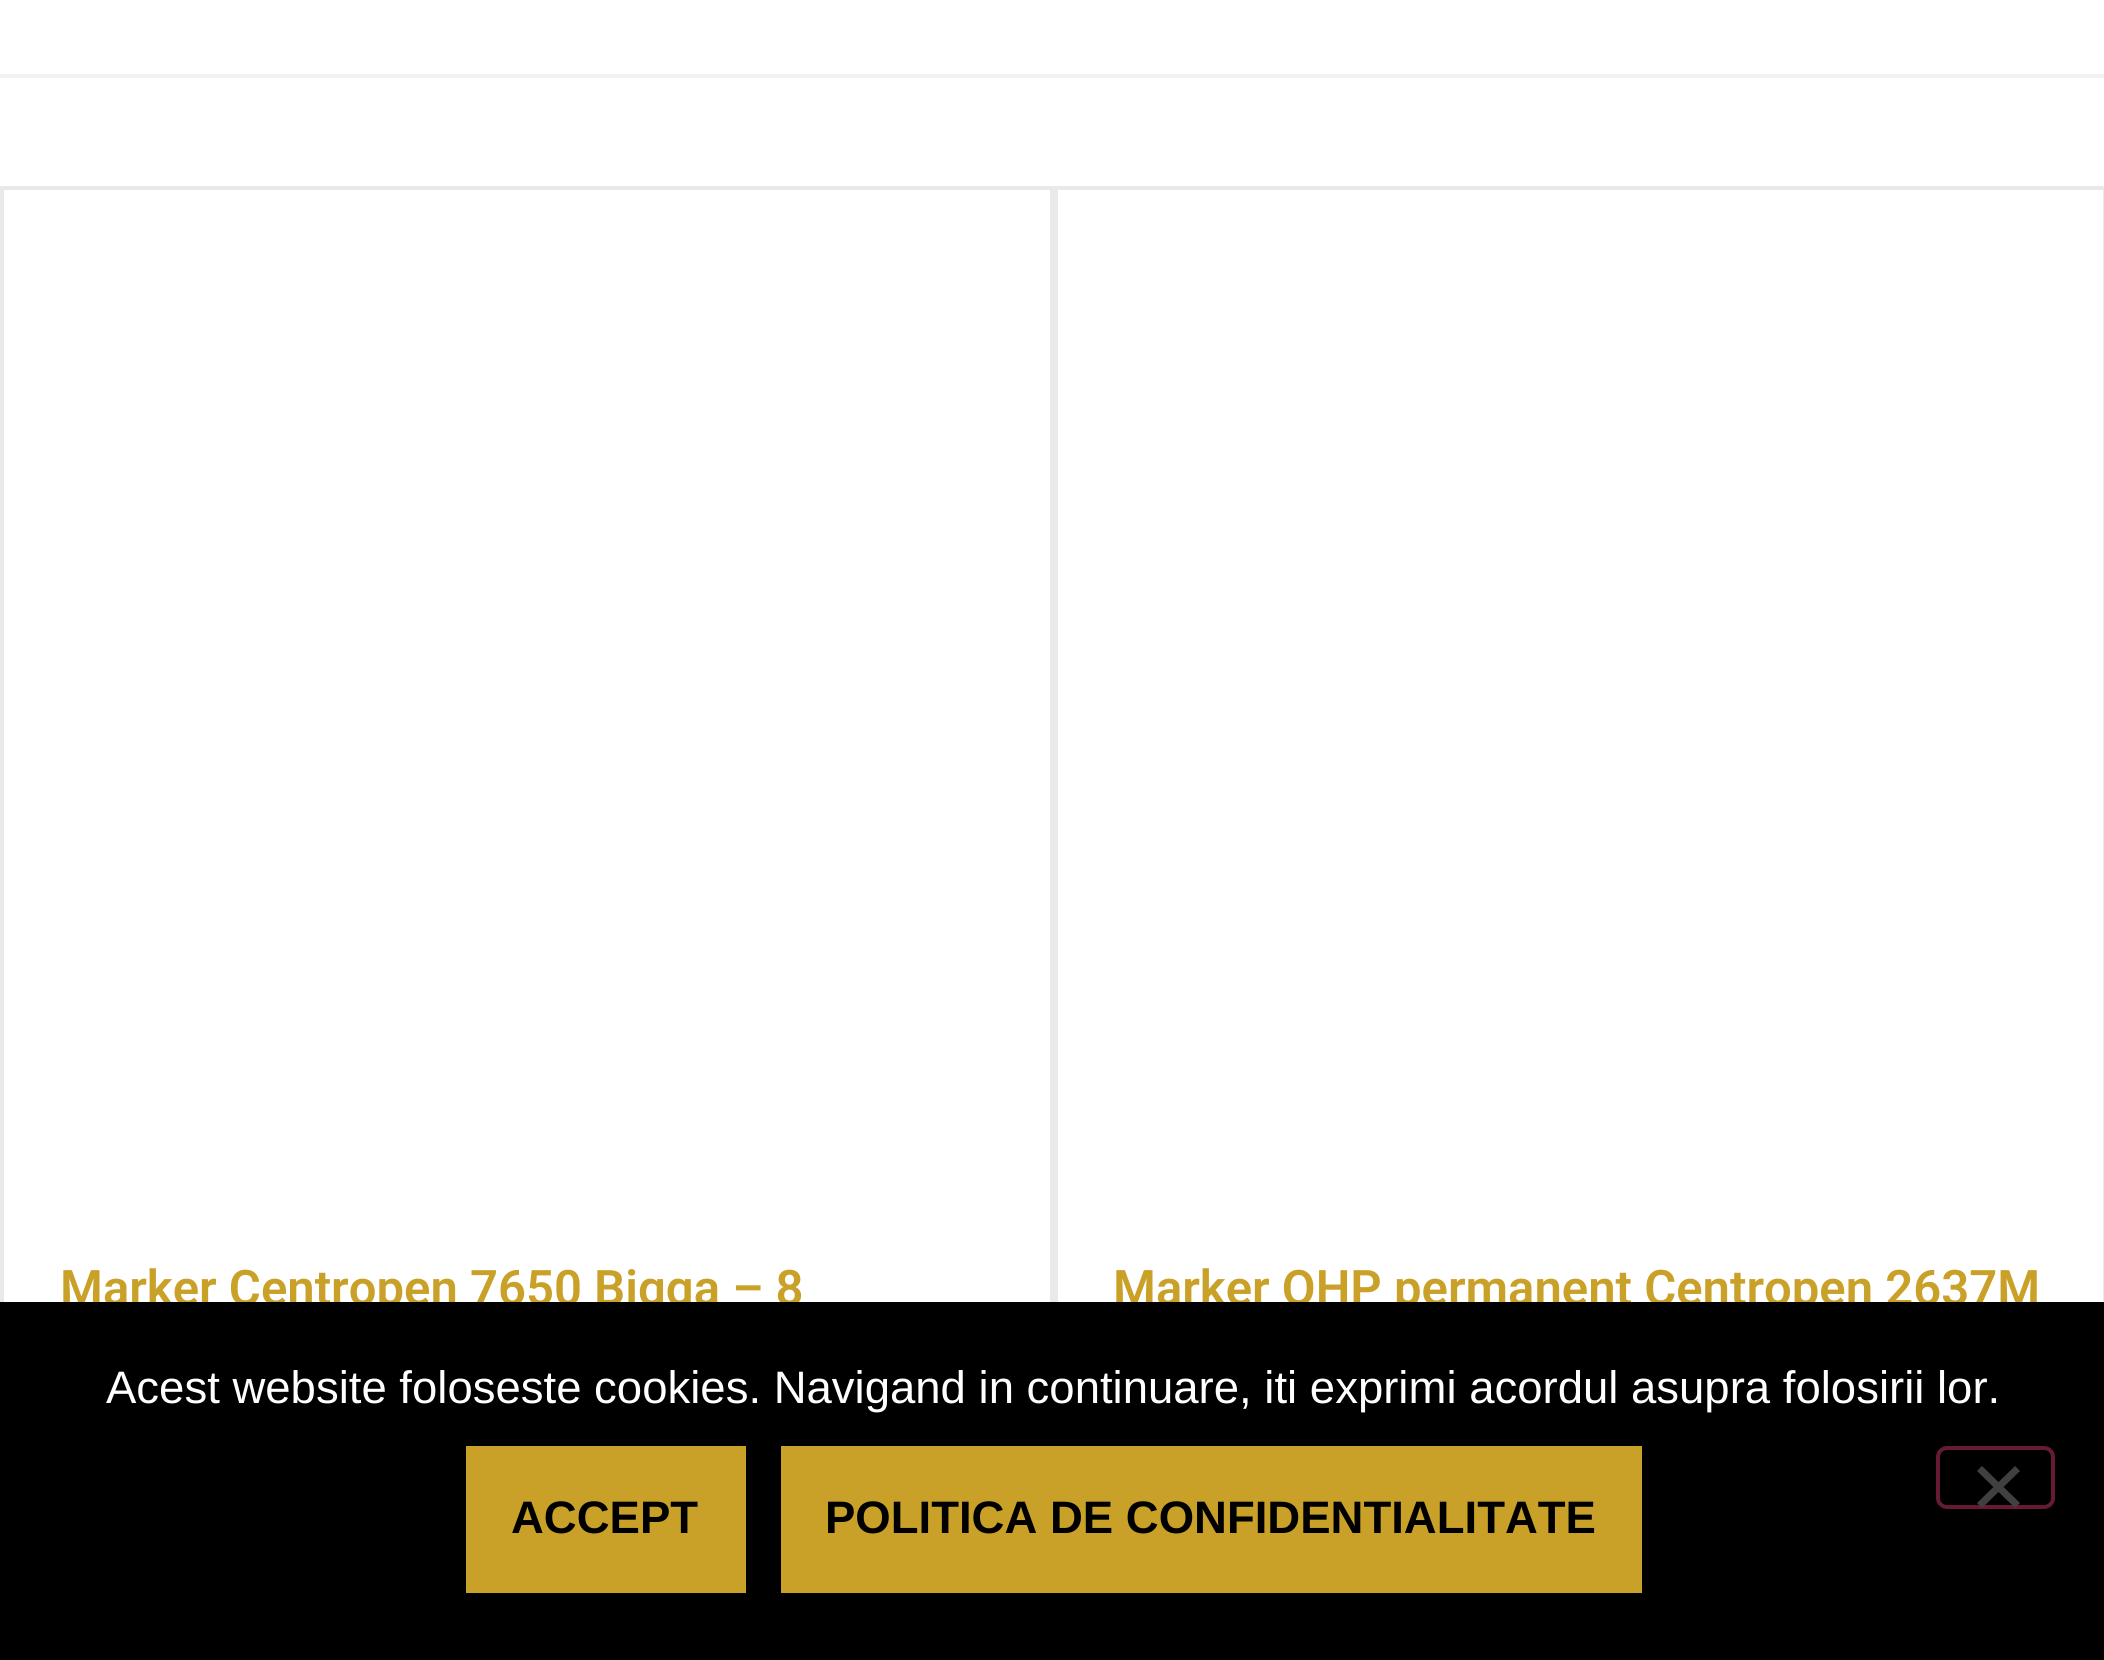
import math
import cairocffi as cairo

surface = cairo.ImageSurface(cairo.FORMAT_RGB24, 2104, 1660)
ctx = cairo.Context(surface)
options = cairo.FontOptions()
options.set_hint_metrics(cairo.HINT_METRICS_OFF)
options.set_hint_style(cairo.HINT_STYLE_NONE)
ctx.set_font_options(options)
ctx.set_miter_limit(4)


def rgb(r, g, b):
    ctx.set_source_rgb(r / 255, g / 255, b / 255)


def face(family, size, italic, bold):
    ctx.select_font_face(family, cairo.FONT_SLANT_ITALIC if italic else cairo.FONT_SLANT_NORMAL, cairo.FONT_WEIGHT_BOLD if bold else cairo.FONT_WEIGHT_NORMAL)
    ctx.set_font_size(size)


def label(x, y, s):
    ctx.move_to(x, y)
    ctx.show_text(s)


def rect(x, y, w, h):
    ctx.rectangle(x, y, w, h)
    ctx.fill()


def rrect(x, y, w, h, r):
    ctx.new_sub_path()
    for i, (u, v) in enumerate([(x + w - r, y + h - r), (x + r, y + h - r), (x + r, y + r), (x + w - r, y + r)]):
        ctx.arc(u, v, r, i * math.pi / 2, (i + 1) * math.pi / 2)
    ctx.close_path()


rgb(255, 255, 255)
ctx.paint()
rgb(241, 241, 241)
rect(0, 74, 2104, 4)
ctx.rectangle(2, 188, 1050, 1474)
rgb(233, 233, 233)
ctx.set_line_width(4)
ctx.stroke()
face('Roboto SemiBold', 49, 0, 0)
rgb(201, 161, 40)
label(60, 1305, 'Marker Centropen 7650 Bigga – 8')
ctx.rectangle(1056, 188, 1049, 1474)
rgb(233, 233, 233)
ctx.stroke()
rgb(201, 161, 40)
label(1113, 1305, 'Marker OHP permanent Centropen 2637M')
rgb(0, 0, 0)
rect(0, 1302, 2104, 358)
face('Liberation Sans', 45.5, 0, 0)
rgb(255, 255, 255)
label(106, 1403, 'Acest website foloseste cookies. Navigand in continuare, iti exprimi acordul asupra folosirii lor.')
rrect(1938, 1448, 115, 59, 9)
rgb(102, 26, 51)
ctx.stroke()
rgb(64, 64, 64)
ctx.new_path()
ctx.move_to(2015, 1466)
ctx.line_to(2020, 1471)
ctx.line_to(1982, 1508)
ctx.line_to(1977, 1503)
ctx.close_path()
ctx.fill()
ctx.new_path()
ctx.move_to(1977, 1471)
ctx.line_to(1982, 1466)
ctx.line_to(2020, 1503)
ctx.line_to(2015, 1508)
ctx.close_path()
ctx.fill()
rgb(201, 161, 40)
rect(466, 1446, 280, 147)
face('Liberation Sans', 45.5, 0, 1)
rgb(0, 0, 0)
label(511, 1533, 'ACCEPT')
rgb(201, 161, 40)
rect(781, 1446, 861, 147)
rgb(0, 0, 0)
label(825, 1533, 'POLITICA DE CONFIDENTIALITATE')
surface.write_to_png('render.png')
